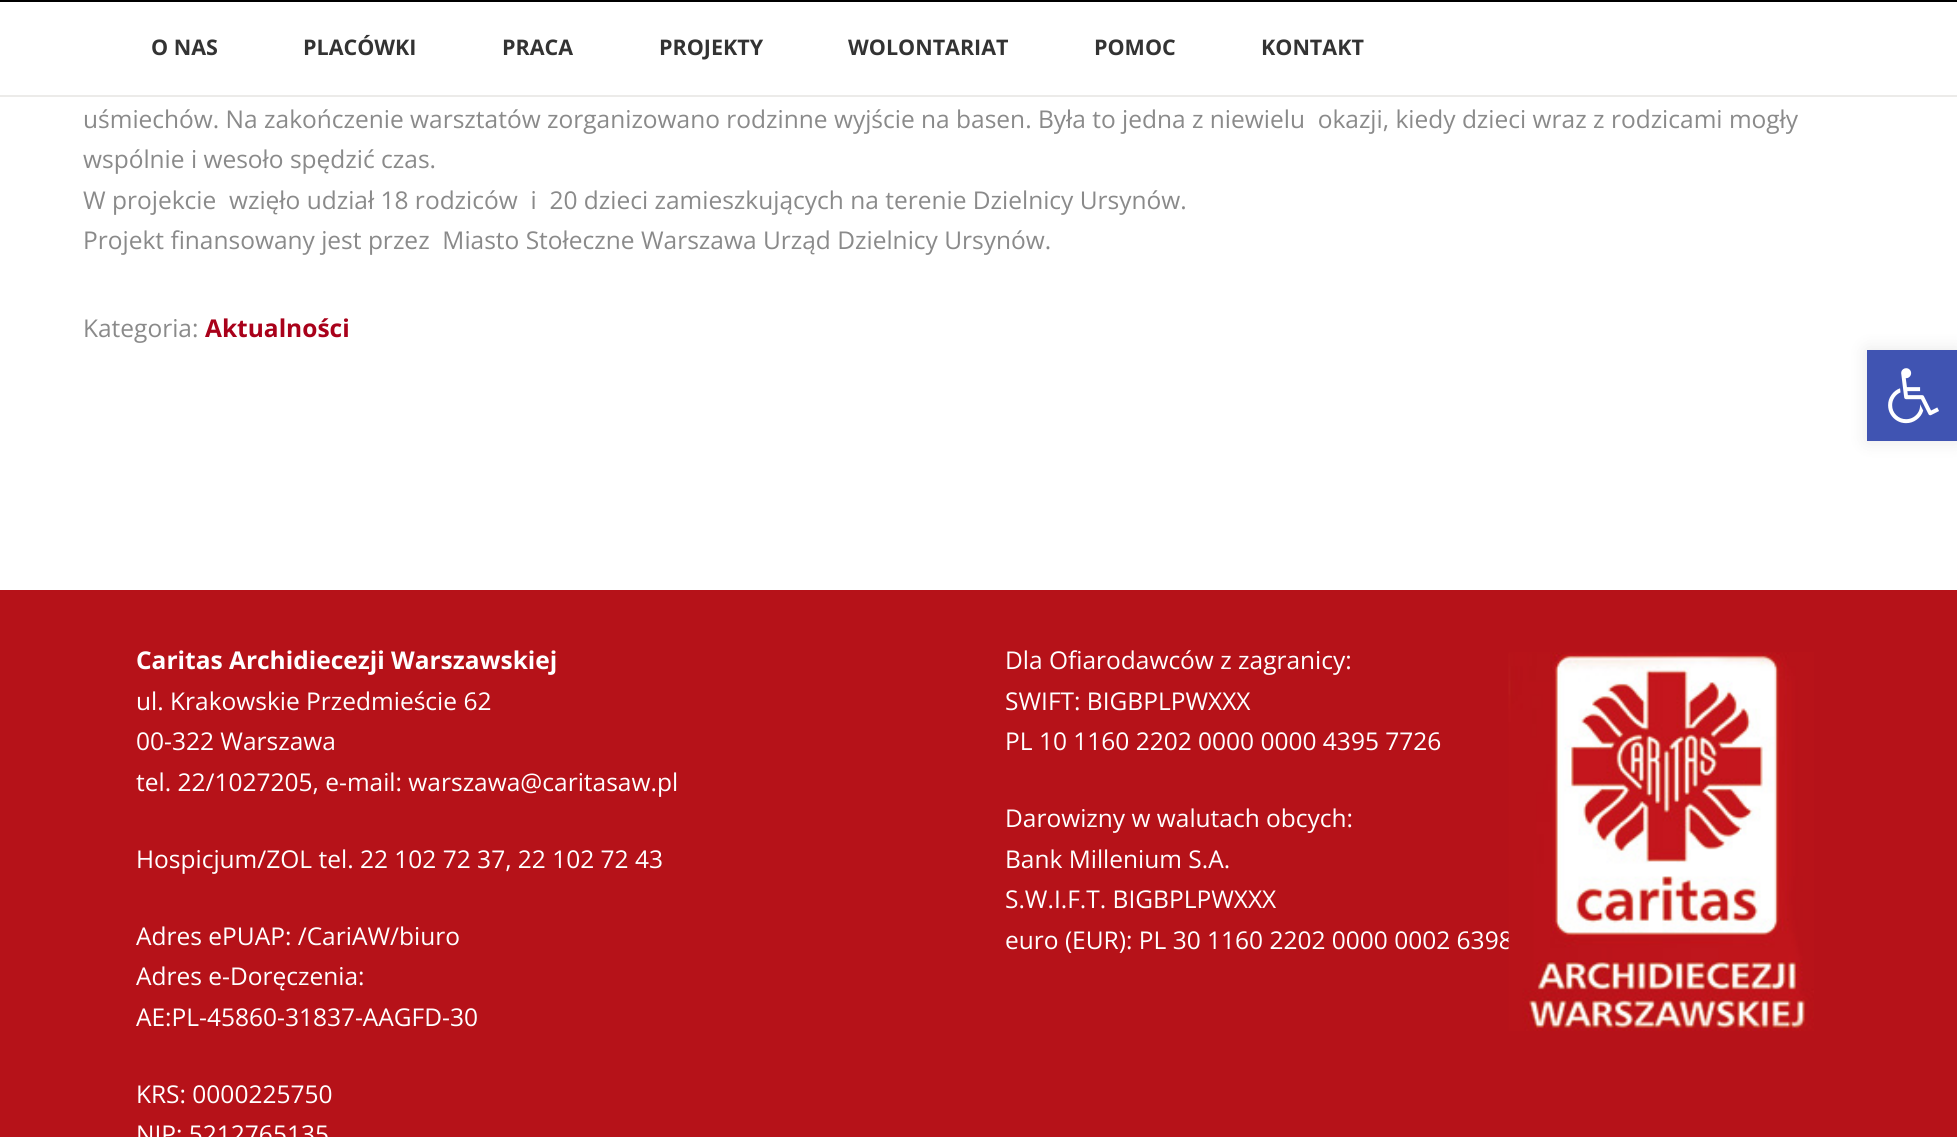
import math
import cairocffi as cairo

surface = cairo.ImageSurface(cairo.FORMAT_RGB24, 1957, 1137)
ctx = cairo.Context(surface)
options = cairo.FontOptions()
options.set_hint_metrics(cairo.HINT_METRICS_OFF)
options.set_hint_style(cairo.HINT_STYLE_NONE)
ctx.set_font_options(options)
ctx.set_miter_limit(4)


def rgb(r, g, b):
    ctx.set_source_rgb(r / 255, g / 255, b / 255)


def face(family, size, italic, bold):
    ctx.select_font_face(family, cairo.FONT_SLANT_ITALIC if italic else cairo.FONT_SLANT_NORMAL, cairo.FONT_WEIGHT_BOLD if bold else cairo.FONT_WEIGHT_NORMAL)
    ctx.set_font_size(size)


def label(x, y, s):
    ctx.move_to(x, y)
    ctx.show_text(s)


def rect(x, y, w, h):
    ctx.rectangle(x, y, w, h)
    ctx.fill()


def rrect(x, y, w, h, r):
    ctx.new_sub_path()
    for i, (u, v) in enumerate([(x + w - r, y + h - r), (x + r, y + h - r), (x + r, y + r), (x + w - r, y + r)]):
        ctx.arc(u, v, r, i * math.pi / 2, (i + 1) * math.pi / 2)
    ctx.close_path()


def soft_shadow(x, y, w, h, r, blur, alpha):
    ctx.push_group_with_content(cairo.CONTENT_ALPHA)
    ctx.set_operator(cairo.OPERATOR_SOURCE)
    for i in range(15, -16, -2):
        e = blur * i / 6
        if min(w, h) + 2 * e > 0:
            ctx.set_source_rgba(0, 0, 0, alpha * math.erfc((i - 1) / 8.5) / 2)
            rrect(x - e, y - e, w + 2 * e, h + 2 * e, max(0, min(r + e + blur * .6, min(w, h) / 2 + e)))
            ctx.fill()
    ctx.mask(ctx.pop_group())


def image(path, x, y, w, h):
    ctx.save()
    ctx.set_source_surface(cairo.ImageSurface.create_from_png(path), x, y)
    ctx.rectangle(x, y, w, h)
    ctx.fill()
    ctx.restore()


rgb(255, 255, 255)
ctx.paint()
rgb(0, 0, 0)
rect(0, 0, 1957, 2)
rgb(236, 235, 233)
rect(0, 95, 1957, 2)
face('Open Sans', 21.5, 0, 1)
rgb(51, 51, 51)
label(151, 55, 'O NAS')
label(303, 55, 'PLACÓWKI')
label(502, 55, 'PRACA')
label(659, 55, 'PROJEKTY')
label(848, 55, 'WOLONTARIAT')
label(1094, 55, 'POMOC')
label(1261, 55, 'KONTAKT')
face('Open Sans', 24.5, 0, 0)
rgb(138, 138, 138)
label(83, 128, 'uśmiechów. Na zakończenie warsztatów zorganizowano rodzinne wyjście na basen. Była to jedna z niewielu  okazji, kiedy dzieci wraz z rodzicami mogły')
label(83, 168, 'wspólnie i wesoło spędzić czas.')
label(83, 209, 'W projekcie  wzięło udział 18 rodziców  i  20 dzieci zamieszkujących na terenie Dzielnicy Ursynów.')
label(83, 249, 'Projekt finansowany jest przez  Miasto Stołeczne Warszawa Urząd Dzielnicy Ursynów.')
label(83, 337, 'Kategoria:')
face('Open Sans', 24.5, 0, 1)
rgb(169, 1, 26)
label(205, 337, 'Aktualności')
rgb(182, 18, 25)
rect(0, 590, 1957, 547)
rgb(255, 255, 255)
label(136, 669, 'Caritas Archidiecezji Warszawskiej')
face('Open Sans', 24.5, 0, 0)
label(136, 710, 'ul. Krakowskie Przedmieście 62')
label(136, 750, '00-322 Warszawa')
label(136, 791, 'tel. 22/1027205, e-mail: warszawa@caritasaw.pl')
label(136, 868, 'Hospicjum/ZOL tel. 22 102 72 37, 22 102 72 43')
label(136, 945, 'Adres ePUAP: /CariAW/biuro')
label(136, 985, 'Adres e-Doręczenia:')
label(136, 1026, 'AE:PL-45860-31837-AAGFD-30')
label(136, 1103, 'KRS: 0000225750')
label(136, 1143, 'NIP: 5212765135')
label(1005, 669, 'Dla Ofiarodawców z zagranicy:')
label(1005, 710, 'SWIFT: BIGBPLPWXXX')
label(1005, 750, 'PL 10 1160 2202 0000 0000 4395 7726')
label(1005, 827, 'Darowizny w walutach obcych:')
label(1005, 868, 'Bank Millenium S.A.')
label(1005, 908, 'S.W.I.F.T. BIGBPLPWXXX')
label(1005, 949, 'euro (EUR): PL 30 1160 2202 0000 0002 6398')
image('image0.png', 1508, 652, 306, 379)
rgb(0, 0, 0)
soft_shadow(1867, 350, 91, 91, 0, 9, 0.1)
rgb(64, 84, 178)
rect(1867, 350, 90, 91)
image('image1.png', 1888, 368, 51, 56)
surface.write_to_png('render.png')
